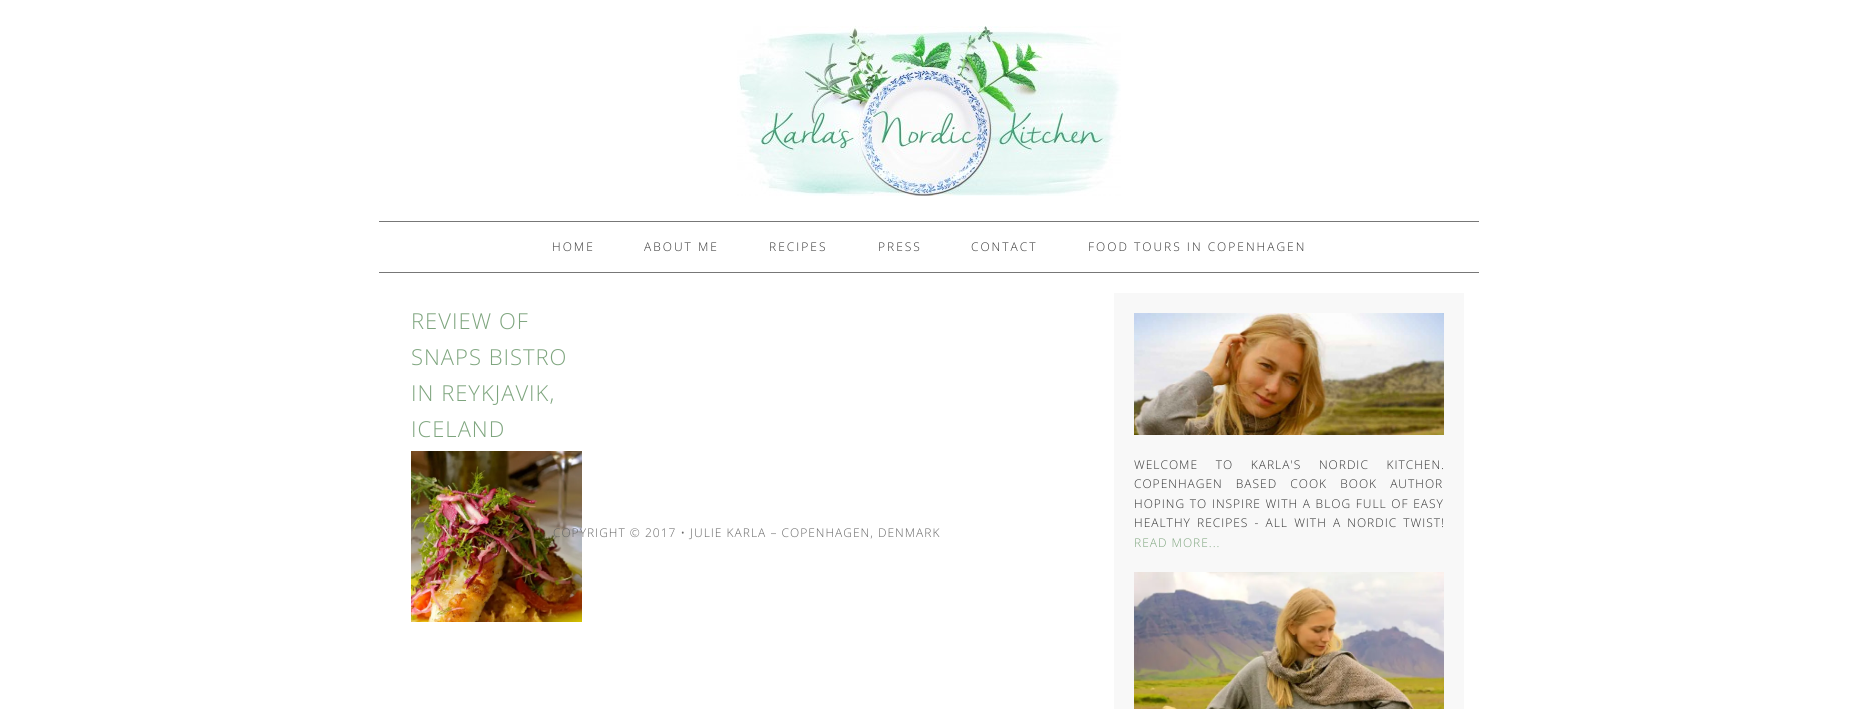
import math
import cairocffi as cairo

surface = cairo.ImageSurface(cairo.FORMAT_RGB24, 1858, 709)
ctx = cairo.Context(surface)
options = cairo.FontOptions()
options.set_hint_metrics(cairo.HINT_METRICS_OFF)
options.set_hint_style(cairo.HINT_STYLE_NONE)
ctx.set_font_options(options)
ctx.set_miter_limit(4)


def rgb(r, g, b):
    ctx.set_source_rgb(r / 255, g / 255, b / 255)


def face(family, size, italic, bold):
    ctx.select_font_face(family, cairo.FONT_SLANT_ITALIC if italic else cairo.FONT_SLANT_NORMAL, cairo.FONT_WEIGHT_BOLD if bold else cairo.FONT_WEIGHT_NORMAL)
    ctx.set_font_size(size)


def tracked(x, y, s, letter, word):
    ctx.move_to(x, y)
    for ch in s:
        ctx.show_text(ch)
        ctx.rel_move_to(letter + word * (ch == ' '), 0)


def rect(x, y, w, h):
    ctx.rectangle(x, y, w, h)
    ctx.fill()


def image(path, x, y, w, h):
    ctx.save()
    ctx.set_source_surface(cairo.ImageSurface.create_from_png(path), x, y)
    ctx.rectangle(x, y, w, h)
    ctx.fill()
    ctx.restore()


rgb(255, 255, 255)
ctx.paint()
image('image0.png', 737, 26, 384, 170)
rgb(119, 119, 119)
rect(379, 221, 1100, 1)
rect(379, 272, 1100, 1)
face('Open Sans Light', 12, 0, 0)
rgb(51, 51, 51)
tracked(552, 251, 'HOME', 2, 0)
tracked(644, 251, 'ABOUT ME', 2, 0)
tracked(769, 251, 'RECIPES', 2, 0)
tracked(878, 251, 'PRESS', 2, 0)
tracked(971, 251, 'CONTACT', 2, 0)
tracked(1088, 251, 'FOOD TOURS IN COPENHAGEN', 2, 0)
face('Open Sans Light', 22, 0, 0)
rgb(126, 165, 126)
tracked(411, 329, 'REVIEW OF', 1, 0)
tracked(411, 365, 'SNAPS BISTRO', 1, 0)
tracked(411, 401, 'IN REYKJAVIK,', 1, 0)
tracked(411, 437, 'ICELAND', 1, 0)
image('image1.png', 411, 451, 171, 171)
rgb(248, 248, 248)
rect(1114, 293, 350, 416)
image('image2.png', 1134, 313, 310, 122)
face('Open Sans Light', 12, 0, 0)
rgb(51, 51, 51)
tracked(1134, 469, 'WELCOME TO KARLA\'S NORDIC KITCHEN.', 1, 13.5)
tracked(1134, 488, 'COPENHAGEN BASED COOK BOOK AUTHOR', 1, 9)
tracked(1134, 508, 'HOPING TO INSPIRE WITH A BLOG FULL OF EASY', 1, 0.5)
tracked(1134, 527, 'HEALTHY RECIPES - ALL WITH A NORDIC TWIST!', 1, 2)
rgb(126, 165, 126)
tracked(1134, 547, 'READ MORE...', 1, 0)
image('image3.png', 1134, 572, 310, 137)
rgb(102, 102, 102)
tracked(553, 537, 'COPYRIGHT © 2017 • JULIE KARLA – COPENHAGEN, DENMARK', 1, 0)
surface.write_to_png('render.png')
